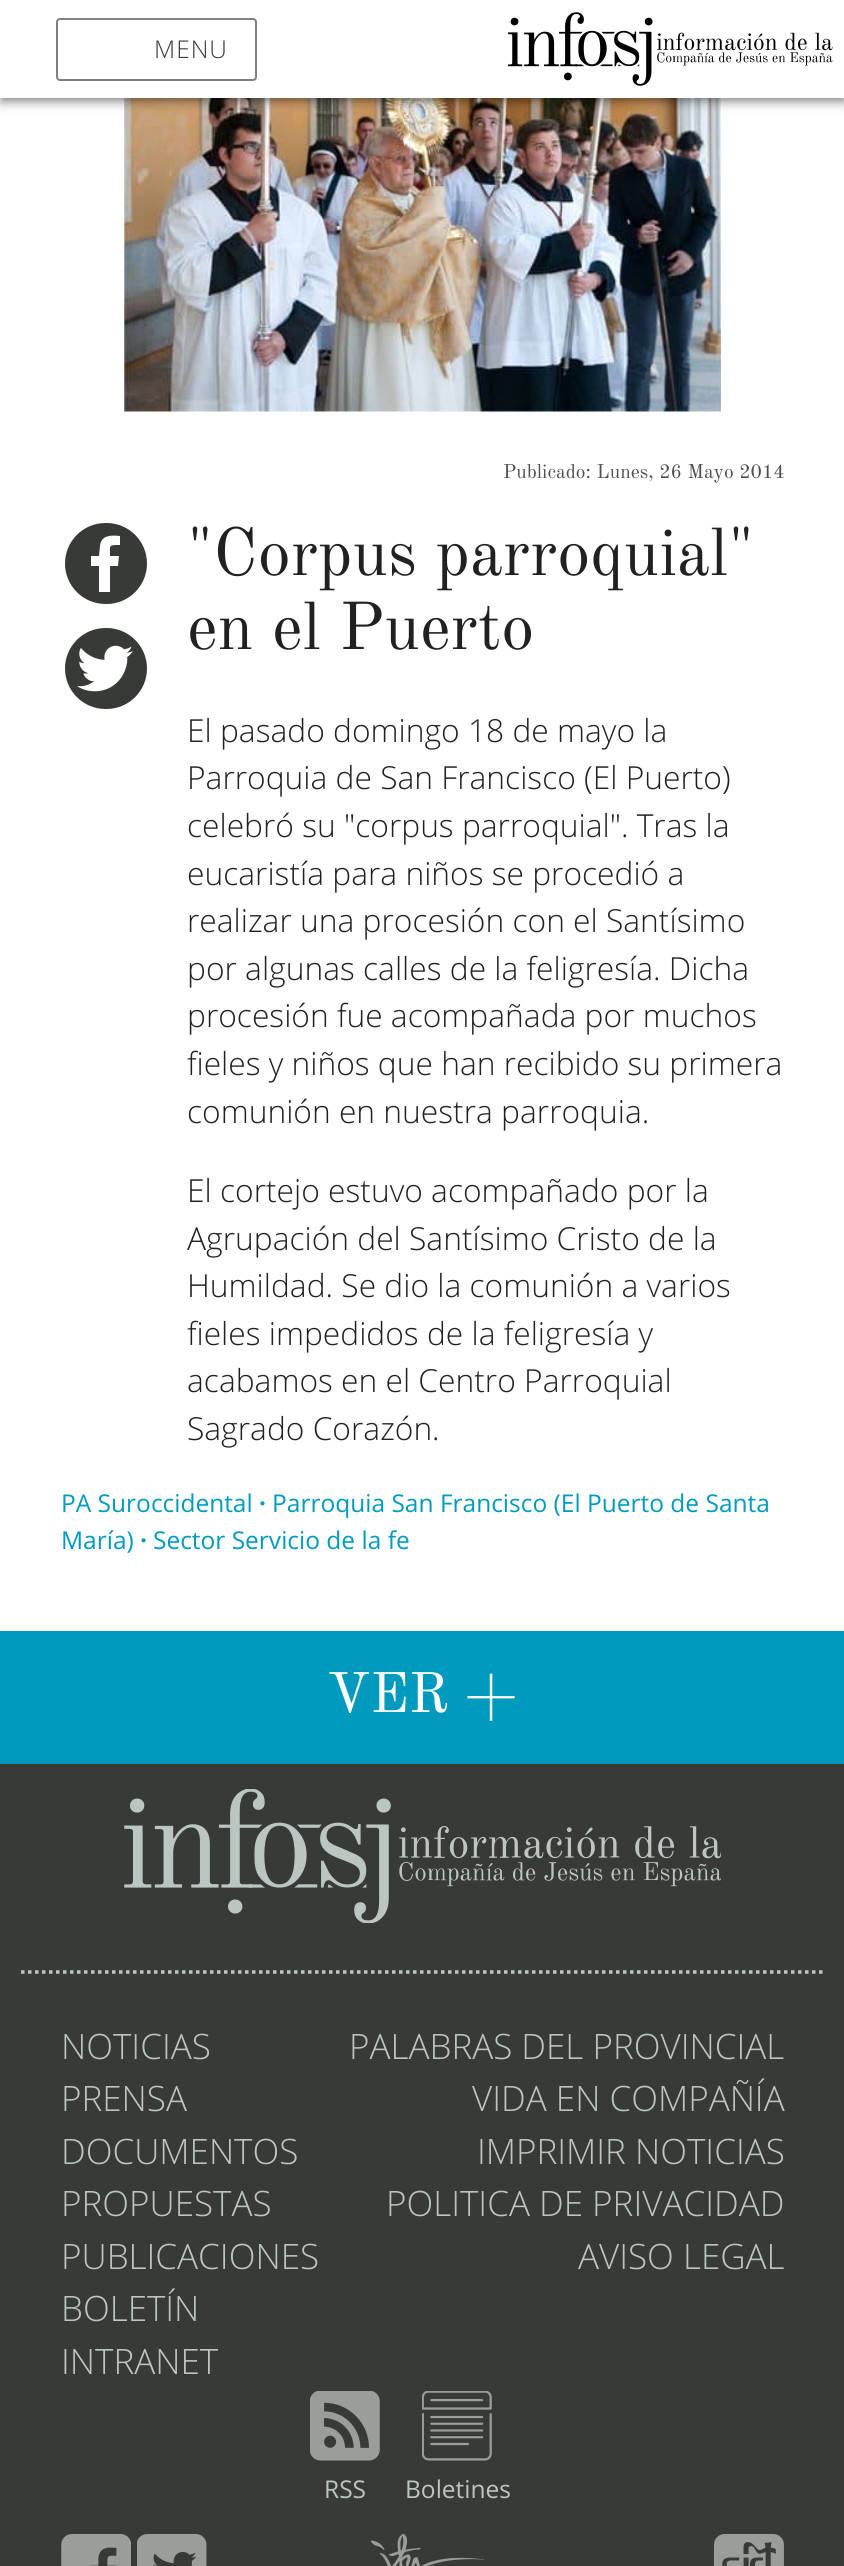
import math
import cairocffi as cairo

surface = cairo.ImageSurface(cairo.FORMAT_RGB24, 844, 2566)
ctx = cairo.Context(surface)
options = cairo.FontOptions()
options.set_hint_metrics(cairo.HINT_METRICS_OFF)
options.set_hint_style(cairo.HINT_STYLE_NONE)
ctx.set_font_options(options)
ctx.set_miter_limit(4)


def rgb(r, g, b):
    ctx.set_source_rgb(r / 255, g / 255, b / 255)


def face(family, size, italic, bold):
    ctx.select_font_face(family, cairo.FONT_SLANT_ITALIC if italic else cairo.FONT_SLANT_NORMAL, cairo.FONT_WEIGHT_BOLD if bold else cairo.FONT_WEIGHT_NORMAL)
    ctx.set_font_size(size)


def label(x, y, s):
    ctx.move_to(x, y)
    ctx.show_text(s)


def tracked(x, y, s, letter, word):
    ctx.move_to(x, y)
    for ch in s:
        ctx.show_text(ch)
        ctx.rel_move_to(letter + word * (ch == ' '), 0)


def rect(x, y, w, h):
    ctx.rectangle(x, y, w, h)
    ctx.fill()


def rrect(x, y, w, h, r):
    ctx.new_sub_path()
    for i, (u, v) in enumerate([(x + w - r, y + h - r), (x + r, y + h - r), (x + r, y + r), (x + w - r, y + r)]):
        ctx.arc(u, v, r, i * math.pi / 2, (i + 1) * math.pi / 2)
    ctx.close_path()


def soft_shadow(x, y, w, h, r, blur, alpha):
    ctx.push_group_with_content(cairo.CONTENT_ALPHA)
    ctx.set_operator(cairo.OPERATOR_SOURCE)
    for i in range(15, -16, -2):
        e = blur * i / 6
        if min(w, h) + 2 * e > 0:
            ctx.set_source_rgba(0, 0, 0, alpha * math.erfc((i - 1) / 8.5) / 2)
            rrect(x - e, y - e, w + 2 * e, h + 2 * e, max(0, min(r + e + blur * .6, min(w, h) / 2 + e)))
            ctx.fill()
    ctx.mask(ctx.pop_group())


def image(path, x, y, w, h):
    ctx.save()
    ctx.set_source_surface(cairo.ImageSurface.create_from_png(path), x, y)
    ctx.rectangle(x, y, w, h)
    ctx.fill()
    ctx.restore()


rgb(255, 255, 255)
ctx.paint()
image('image1.png', 124, 98, 597, 314)
rgb(0, 0, 0)
soft_shadow(2, 5, 842, 95, 0, 3.5, 0.3)
soft_shadow(0, 2, 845, 98, 0, 9, 0.12)
soft_shadow(0, 7, 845, 98, 0, 4.5, 0.14)
rgb(255, 255, 255)
rect(0, 0, 844, 98)
rrect(57, 19, 199, 61, 3)
rgb(128, 128, 128)
ctx.stroke()
face('Open Sans Light', 24.5, 0, 0)
rgb(55, 58, 54)
tracked(154, 58, 'MENU', 1, 0)
image('image0.png', 508, 12, 325, 74)
face('Old Standard TT', 19.6, 0, 0)
rgb(78, 78, 78)
label(503, 478, 'Publicado: Lunes, 26 Mayo 2014')
rgb(55, 58, 54)
rrect(65, 523, 82, 81, 40.5)
ctx.fill()
rgb(255, 255, 255)
ctx.new_path()
ctx.move_to(99, 592)
ctx.line_to(99, 566)
ctx.line_to(91, 566)
ctx.line_to(91, 556)
ctx.line_to(99, 556)
ctx.line_to(100, 546)
ctx.curve_to(101, 535, 111, 535, 120, 536)
ctx.line_to(120, 545)
ctx.curve_to(108, 545, 110, 545, 110, 556)
ctx.line_to(119, 556)
ctx.line_to(118, 566)
ctx.line_to(110, 566)
ctx.line_to(110, 592)
ctx.close_path()
ctx.fill()
rgb(55, 58, 54)
rrect(65, 628, 82, 81, 40.5)
ctx.fill()
image('image2.png', 77, 645, 56, 47)
face('Old Standard TT', 66.5, 0, 0)
rgb(33, 33, 33)
label(187, 575, '"Corpus parroquial"')
label(187, 649, 'en el Puerto')
face('Open Sans Light', 31.75, 0, 0)
label(187, 742, 'El pasado domingo 18 de mayo la')
label(187, 789, 'Parroquia de San Francisco (El Puerto)')
label(187, 837, 'celebró su "corpus parroquial". Tras la')
label(187, 885, 'eucaristía para niños se procedió a')
label(187, 932, 'realizar una procesión con el Santísimo')
label(187, 980, 'por algunas calles de la feligresía. Dicha')
label(187, 1027, 'procesión fue acompañada por muchos')
label(187, 1075, 'fieles y niños que han recibido su primera')
label(187, 1123, 'comunión en nuestra parroquia.')
label(187, 1202, 'El cortejo estuvo acompañado por la')
label(187, 1250, 'Agrupación del Santísimo Cristo de la')
label(187, 1297, 'Humildad. Se dio la comunión a varios')
label(187, 1345, 'fieles impedidos de la feligresía y')
label(187, 1392, 'acabamos en el Centro Parroquial')
label(187, 1440, 'Sagrado Corazón.')
face('Open Sans', 24.5, 0, 0)
rgb(0, 154, 190)
label(61, 1512, 'PA Suroccidental')
face('Open Sans', 24.5, 0, 1)
label(259, 1512, '·')
face('Open Sans', 24.5, 0, 0)
label(272, 1512, 'Parroquia San Francisco (El Puerto de Santa')
label(61, 1549, 'María)')
face('Open Sans', 24.5, 0, 1)
label(140, 1549, '·')
face('Open Sans', 24.5, 0, 0)
label(153, 1549, 'Sector Servicio de la fe')
rect(0, 1631, 844, 133)
face('Old Standard TT', 56, 0, 0)
rgb(255, 255, 255)
label(327, 1712, 'VER +')
rgb(55, 58, 54)
rect(0, 1764, 844, 802)
image('image3.png', 124, 1789, 597, 134)
ctx.new_path()
ctx.move_to(21, 1972)
ctx.line_to(824, 1972)
rgb(187, 198, 195)
ctx.set_line_width(3.5)
ctx.set_dash([3.5, 3.5])
ctx.stroke()
face('Open Sans Light', 35, 0, 0)
label(61, 2059, 'NOTICIAS')
label(61, 2111, 'PRENSA')
label(61, 2164, 'DOCUMENTOS')
label(61, 2216, 'PROPUESTAS')
label(61, 2269, 'PUBLICACIONES')
label(61, 2321, 'BOLETÍN')
label(61, 2374, 'INTRANET')
label(349, 2059, 'PALABRAS DEL PROVINCIAL')
label(472, 2111, 'VIDA EN COMPAÑÍA')
label(477, 2164, 'IMPRIMIR NOTICIAS')
label(386, 2216, 'POLITICA DE PRIVACIDAD')
label(578, 2269, 'AVISO LEGAL')
image('image4.png', 310, 2391, 70, 70)
face('Open Sans', 24.5, 0, 0)
label(324, 2498, 'RSS')
image('image5.png', 422, 2391, 70, 70)
label(405, 2498, 'Boletines')
image('image6.png', 61, 2534, 70, 32)
image('image7.png', 137, 2534, 70, 32)
image('image8.png', 371, 2534, 113, 32)
image('image9.png', 714, 2534, 70, 32)
surface.write_to_png('render.png')
